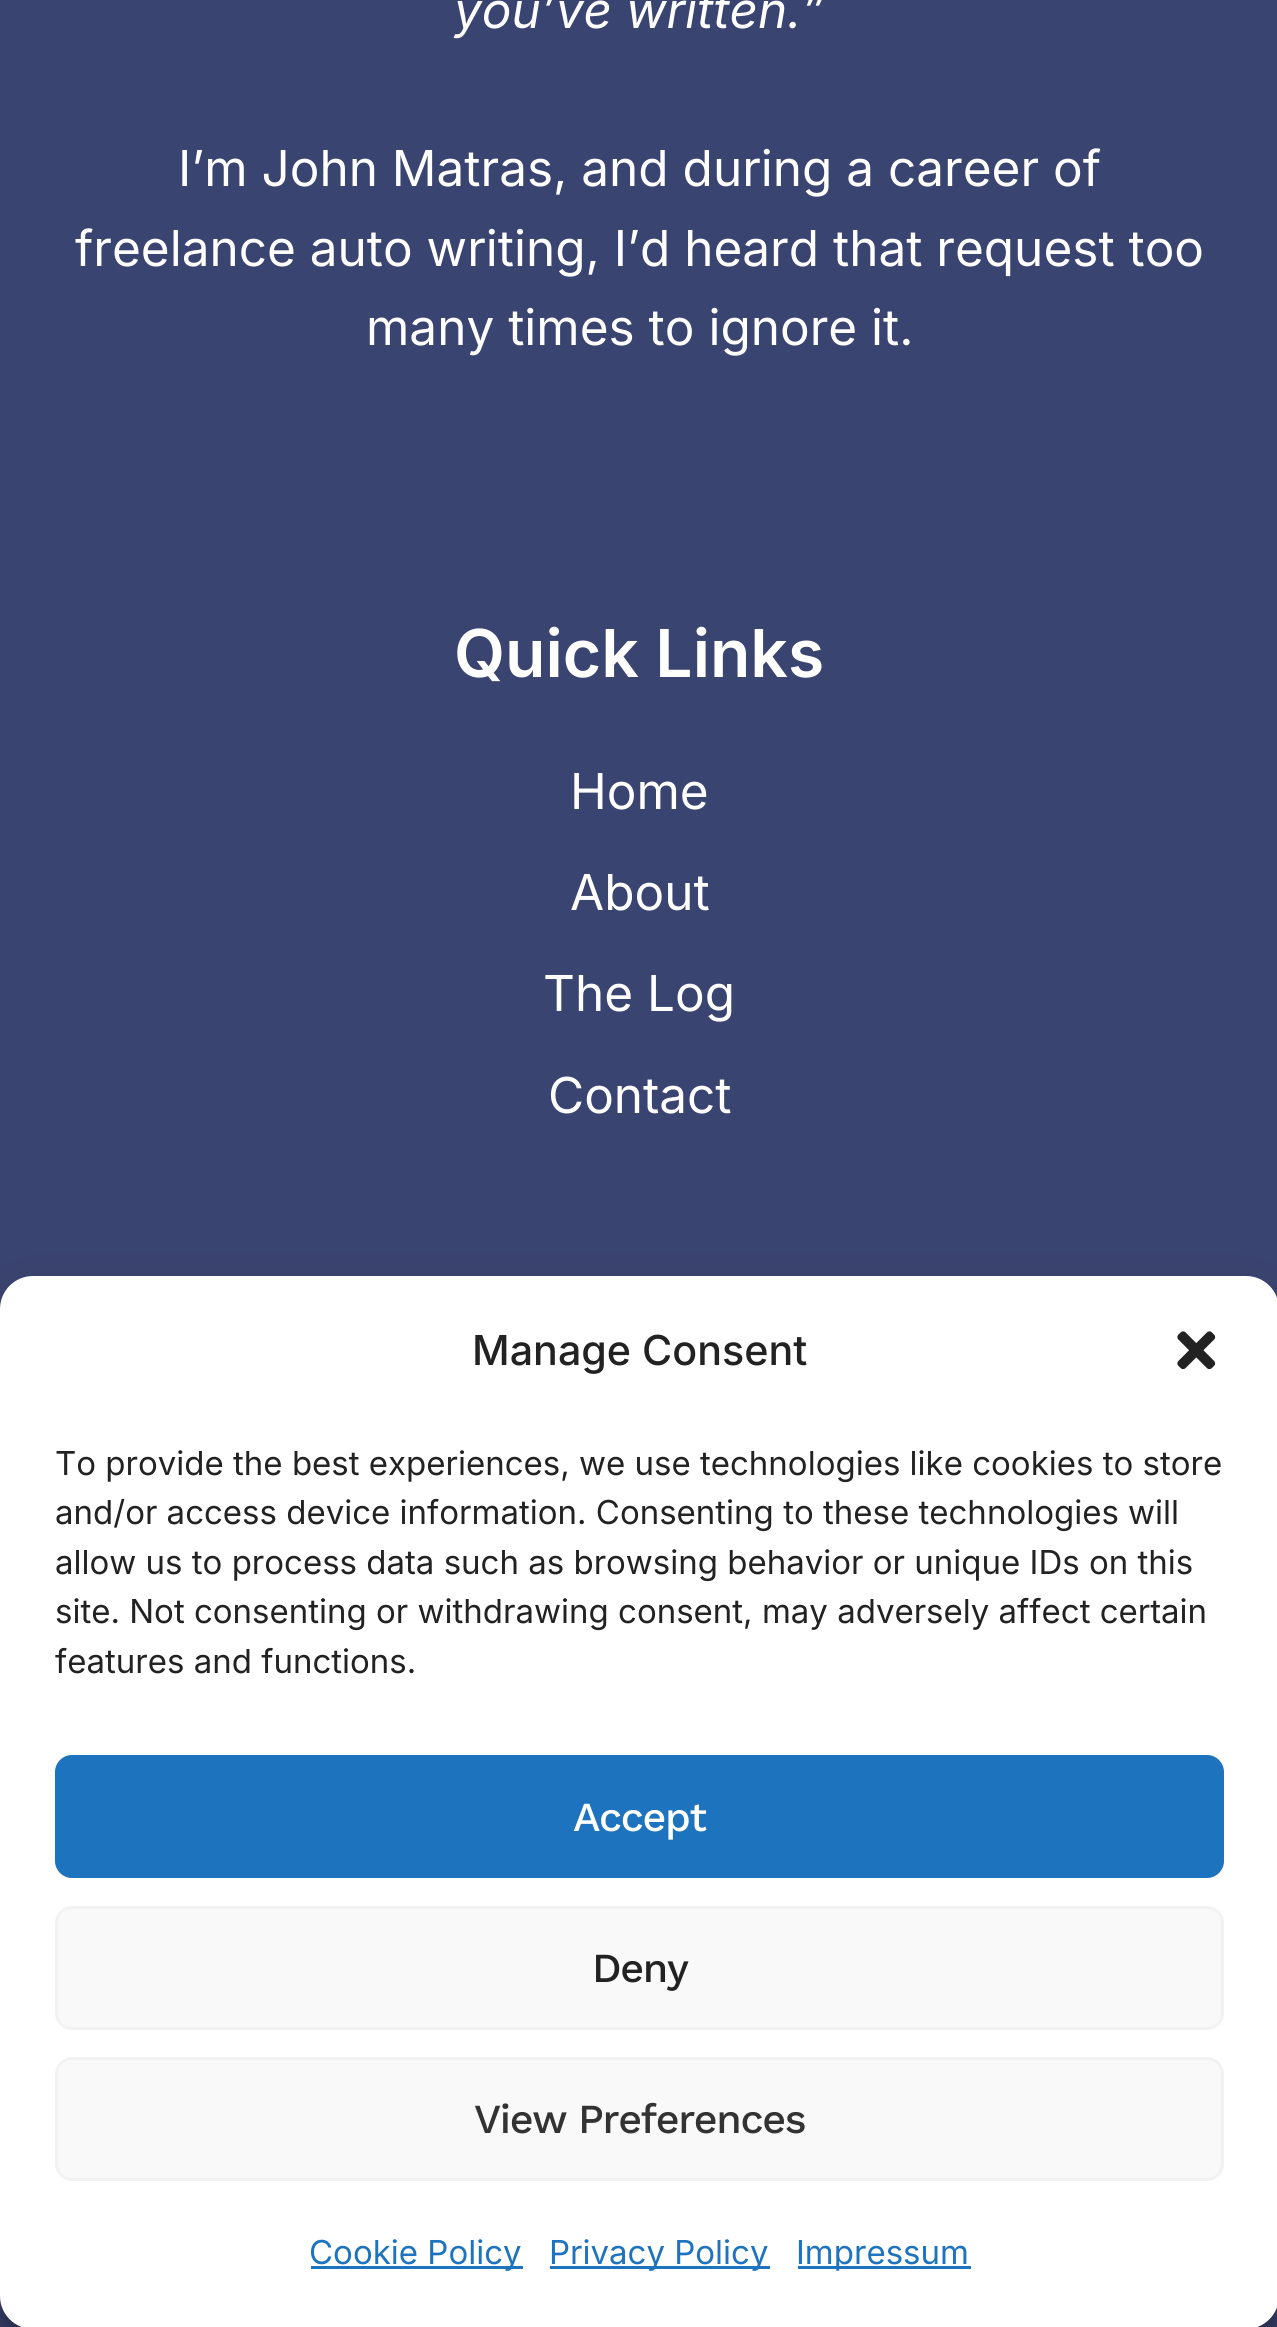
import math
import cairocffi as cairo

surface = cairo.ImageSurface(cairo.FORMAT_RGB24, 1277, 2327)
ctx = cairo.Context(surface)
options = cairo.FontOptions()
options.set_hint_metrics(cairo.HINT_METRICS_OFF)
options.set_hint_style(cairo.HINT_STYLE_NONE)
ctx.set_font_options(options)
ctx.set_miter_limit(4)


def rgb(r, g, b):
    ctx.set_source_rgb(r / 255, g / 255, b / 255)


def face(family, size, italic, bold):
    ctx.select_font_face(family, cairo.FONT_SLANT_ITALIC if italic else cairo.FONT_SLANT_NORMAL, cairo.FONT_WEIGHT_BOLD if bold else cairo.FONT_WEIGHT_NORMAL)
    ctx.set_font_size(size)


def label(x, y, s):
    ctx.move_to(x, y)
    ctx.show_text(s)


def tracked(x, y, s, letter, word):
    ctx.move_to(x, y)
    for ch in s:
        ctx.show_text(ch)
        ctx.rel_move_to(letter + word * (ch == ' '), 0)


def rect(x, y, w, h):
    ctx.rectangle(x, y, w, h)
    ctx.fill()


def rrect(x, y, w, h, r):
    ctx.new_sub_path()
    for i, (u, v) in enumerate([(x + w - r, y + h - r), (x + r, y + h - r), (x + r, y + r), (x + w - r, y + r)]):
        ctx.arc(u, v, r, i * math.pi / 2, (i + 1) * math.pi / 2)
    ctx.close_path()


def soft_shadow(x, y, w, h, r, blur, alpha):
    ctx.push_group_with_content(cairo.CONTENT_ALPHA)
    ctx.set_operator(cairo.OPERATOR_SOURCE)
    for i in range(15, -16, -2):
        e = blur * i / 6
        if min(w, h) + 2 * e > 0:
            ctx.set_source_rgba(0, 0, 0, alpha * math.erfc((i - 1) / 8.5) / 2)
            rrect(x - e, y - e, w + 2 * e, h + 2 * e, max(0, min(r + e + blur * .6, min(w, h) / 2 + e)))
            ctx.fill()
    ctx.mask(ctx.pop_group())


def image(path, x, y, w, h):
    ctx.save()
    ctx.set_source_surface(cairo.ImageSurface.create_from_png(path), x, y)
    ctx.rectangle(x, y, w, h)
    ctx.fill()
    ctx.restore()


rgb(58, 68, 112)
ctx.paint()
face('Inter', 49.5, 1, 0)
rgb(255, 255, 255)
label(454, 28, 'you’ve written.”')
face('Inter', 49.5, 0, 0)
label(178, 186, 'I’m John Matras, and during a career of')
label(75, 266, 'freelance auto writing, I’d heard that request too')
label(366, 345, 'many times to ignore it.')
face('Inter SemiBold', 66, 0, 0)
label(454, 677, 'Quick Links')
face('Inter', 49.5, 0, 0)
label(570, 809, 'Home')
label(570, 910, 'About')
label(543, 1011, 'The Log')
label(548, 1113, 'Contact')
rgb(0, 0, 0)
soft_shadow(0, 1293, 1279, 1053, 33, 8, 0.23)
soft_shadow(0, 1304, 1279, 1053, 33, 27.5, 0.19)
rgb(255, 255, 255)
rrect(0, 1276, 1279, 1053, 33)
ctx.fill()
face('Inter Medium', 41.25, 0, 0)
rgb(34, 34, 34)
label(472, 1365, 'Manage Consent')
image('image0.png', 1177, 1331, 39, 39)
face('Inter', 33, 0, 0)
label(55, 1475, 'To provide the best experiences, we use technologies like cookies to store')
label(55, 1524, 'and/or access device information. Consenting to these technologies will')
label(55, 1574, 'allow us to process data such as browsing behavior or unique IDs on this')
label(55, 1623, 'site. Not consenting or withdrawing consent, may adversely affect certain')
label(55, 1673, 'features and functions.')
rgb(30, 115, 190)
rrect(56.5, 1756.5, 1166, 120, 15.5)
ctx.fill_preserve()
ctx.set_line_width(3)
ctx.stroke()
face('Work Sans Medium', 41.25, 0, 0)
rgb(255, 255, 255)
tracked(573, 1831, 'Accept', -1.4, 0)
rgb(249, 249, 249)
rrect(56.5, 1907.5, 1166, 121, 15.5)
ctx.fill_preserve()
rgb(242, 242, 242)
ctx.stroke()
rgb(34, 34, 34)
tracked(592, 1982, 'Deny', -1.4, 0)
rgb(249, 249, 249)
rrect(56.5, 2058.5, 1166, 121, 15.5)
ctx.fill_preserve()
rgb(242, 242, 242)
ctx.stroke()
rgb(51, 51, 51)
tracked(474, 2133, 'View Preferences', -1.4, 0)
rgb(30, 115, 190)
rect(311, 2266, 212, 3)
face('Inter', 33, 0, 0)
label(309, 2264, 'Cookie Policy')
rect(550, 2266, 220, 3)
label(549, 2264, 'Privacy Policy')
rect(798, 2266, 173, 3)
label(796, 2264, 'Impressum')
surface.write_to_png('render.png')
